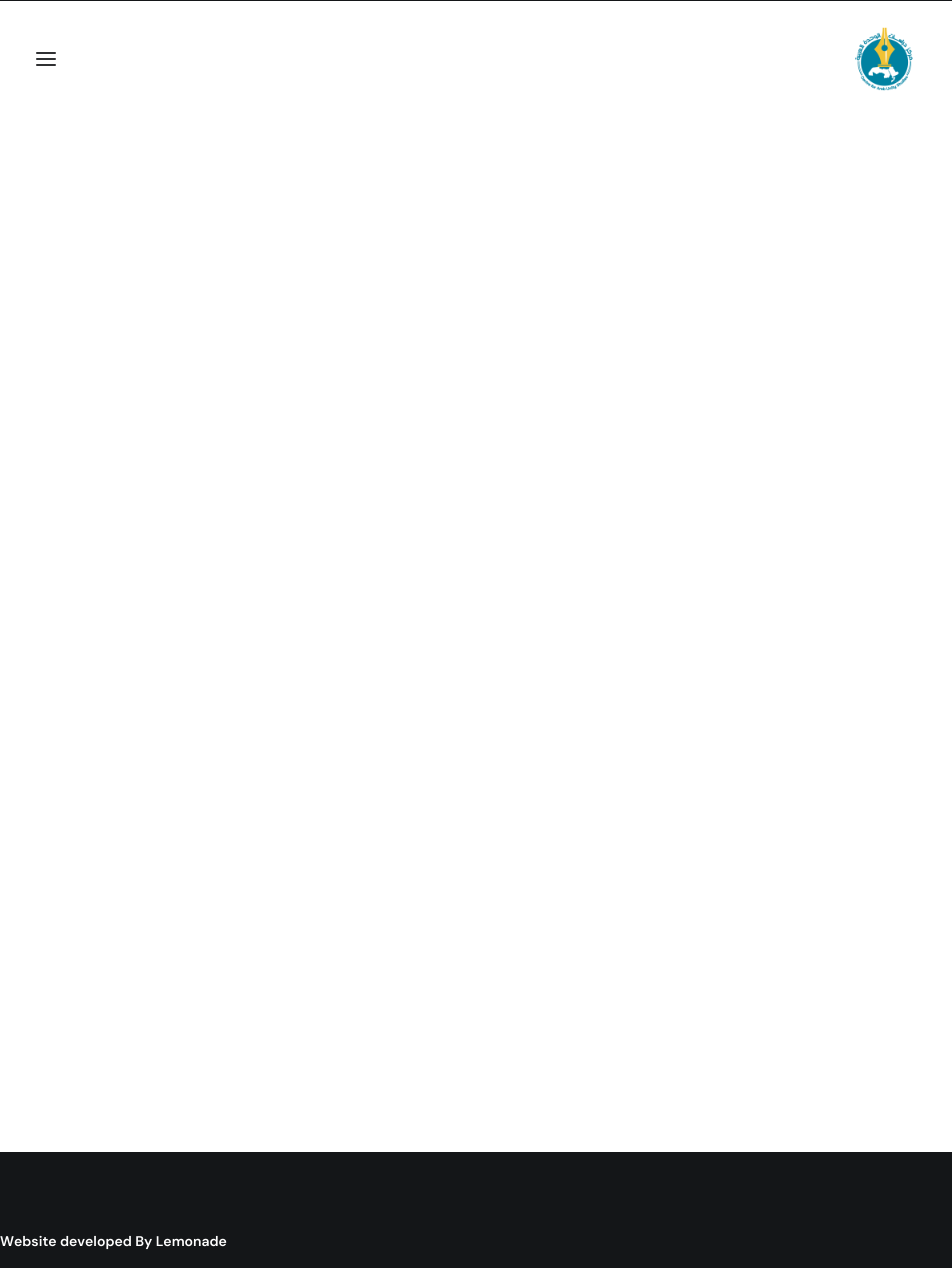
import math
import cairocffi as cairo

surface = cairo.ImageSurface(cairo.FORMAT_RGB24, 952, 1268)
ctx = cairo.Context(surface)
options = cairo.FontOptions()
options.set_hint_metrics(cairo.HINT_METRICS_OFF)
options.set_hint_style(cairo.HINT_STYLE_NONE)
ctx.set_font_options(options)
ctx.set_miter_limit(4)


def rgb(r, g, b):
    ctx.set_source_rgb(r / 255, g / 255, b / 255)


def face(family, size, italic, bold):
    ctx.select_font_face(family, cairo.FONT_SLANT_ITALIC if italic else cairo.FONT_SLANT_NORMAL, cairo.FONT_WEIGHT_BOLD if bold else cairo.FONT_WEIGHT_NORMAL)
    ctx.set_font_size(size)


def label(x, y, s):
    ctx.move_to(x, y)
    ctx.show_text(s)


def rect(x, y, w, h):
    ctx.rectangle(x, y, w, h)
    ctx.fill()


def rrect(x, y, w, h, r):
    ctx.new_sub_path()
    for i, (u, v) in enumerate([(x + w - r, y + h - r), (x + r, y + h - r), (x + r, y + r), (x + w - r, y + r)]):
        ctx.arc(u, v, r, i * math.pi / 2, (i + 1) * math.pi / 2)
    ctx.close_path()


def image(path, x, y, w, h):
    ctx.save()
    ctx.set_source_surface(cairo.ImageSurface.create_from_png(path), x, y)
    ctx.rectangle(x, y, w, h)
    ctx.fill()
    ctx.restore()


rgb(20, 22, 24)
ctx.paint()
rgb(255, 255, 255)
rect(0, 1, 952, 1151)
rgb(48, 49, 51)
rrect(36, 58, 20, 2, 1)
ctx.fill()
rrect(36, 52, 20, 2, 1)
ctx.fill()
rrect(36, 64, 20, 2, 1)
ctx.fill()
image('image0.png', 855, 27, 58, 64)
face('DM Sans SemiBold', 14, 0, 0)
rgb(255, 255, 255)
label(0, 1246, 'Website developed By Lemonade')
surface.write_to_png('render.png')
